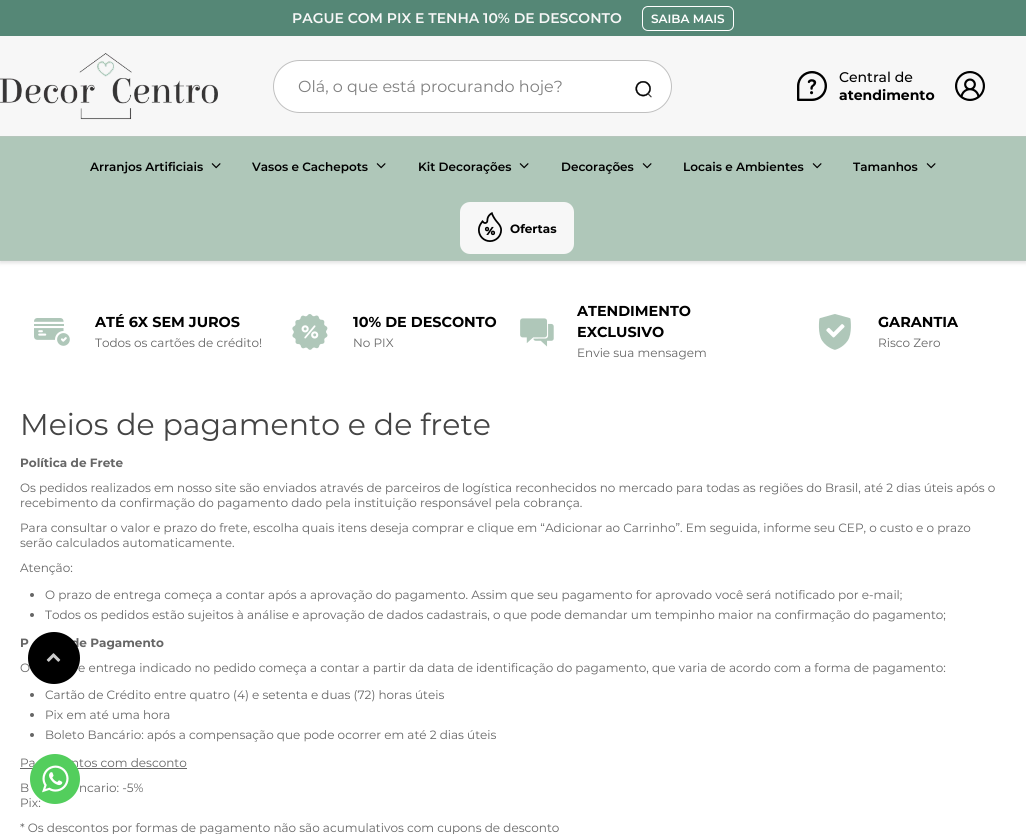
import math
import cairocffi as cairo

surface = cairo.ImageSurface(cairo.FORMAT_RGB24, 1026, 834)
ctx = cairo.Context(surface)
options = cairo.FontOptions()
options.set_hint_metrics(cairo.HINT_METRICS_OFF)
options.set_hint_style(cairo.HINT_STYLE_NONE)
ctx.set_font_options(options)
ctx.set_miter_limit(4)


def rgb(r, g, b):
    ctx.set_source_rgb(r / 255, g / 255, b / 255)


def face(family, size, italic, bold):
    ctx.select_font_face(family, cairo.FONT_SLANT_ITALIC if italic else cairo.FONT_SLANT_NORMAL, cairo.FONT_WEIGHT_BOLD if bold else cairo.FONT_WEIGHT_NORMAL)
    ctx.set_font_size(size)


def label(x, y, s):
    ctx.move_to(x, y)
    ctx.show_text(s)


def rect(x, y, w, h):
    ctx.rectangle(x, y, w, h)
    ctx.fill()


def rrect(x, y, w, h, r):
    ctx.new_sub_path()
    for i, (u, v) in enumerate([(x + w - r, y + h - r), (x + r, y + h - r), (x + r, y + r), (x + w - r, y + r)]):
        ctx.arc(u, v, r, i * math.pi / 2, (i + 1) * math.pi / 2)
    ctx.close_path()


def soft_shadow(x, y, w, h, r, blur, alpha):
    ctx.push_group_with_content(cairo.CONTENT_ALPHA)
    ctx.set_operator(cairo.OPERATOR_SOURCE)
    for i in range(15, -16, -2):
        e = blur * i / 6
        if min(w, h) + 2 * e > 0:
            ctx.set_source_rgba(0, 0, 0, alpha * math.erfc((i - 1) / 8.5) / 2)
            rrect(x - e, y - e, w + 2 * e, h + 2 * e, max(0, min(r + e + blur * .6, min(w, h) / 2 + e)))
            ctx.fill()
    ctx.mask(ctx.pop_group())


def image(path, x, y, w, h):
    ctx.save()
    ctx.set_source_surface(cairo.ImageSurface.create_from_png(path), x, y)
    ctx.rectangle(x, y, w, h)
    ctx.fill()
    ctx.restore()


rgb(255, 255, 255)
ctx.paint()
rgb(85, 135, 118)
rect(0, 0, 1026, 36)
face('Montserrat SemiBold', 14, 0, 0)
rgb(247, 247, 247)
label(292, 23, 'PAGUE COM PIX E TENHA 10% DE DESCONTO')
rrect(642.5, 6.5, 91, 24, 5.5)
rgb(255, 255, 255)
ctx.set_line_width(1)
ctx.stroke()
face('Montserrat SemiBold', 12, 0, 0)
label(651, 23, 'SAIBA MAIS')
rgb(0, 0, 0)
soft_shadow(0, 138, 1026, 125, 0, 2, 0.12)
rgb(247, 247, 247)
rect(0, 36, 1026, 100)
image('image0.png', 0, 53, 218, 67)
rgb(255, 255, 255)
rrect(273, 60, 399, 53, 26.5)
ctx.fill()
rrect(273.5, 60.5, 398, 52, 26)
ctx.set_source_rgba(0.643, 0.643, 0.643, 0.68)
ctx.stroke()
face('Montserrat', 16, 0, 0)
rgb(128, 128, 128)
label(298, 92, 'Olá, o que está procurando hoje?')
image('image1.png', 635, 81, 17, 17)
image('image2.png', 797, 71, 30, 30)
face('Montserrat Medium', 14, 0, 0)
rgb(0, 0, 0)
label(839, 82, 'Central de')
face('Montserrat', 14, 0, 1)
label(839, 100, 'atendimento')
image('image3.png', 955, 71, 30, 30)
rgb(175, 199, 185)
rect(0, 137, 1026, 123)
rgb(182, 198, 188)
rect(0, 136, 1026, 1)
rgb(182, 198, 189)
rect(0, 260, 1026, 1)
face('Montserrat SemiBold', 12, 0, 0)
rgb(0, 0, 0)
label(90, 171, 'Arranjos Artificiais')
image('image4.png', 211, 163, 10, 6)
label(252, 171, 'Vasos e Cachepots')
image('image4.png', 376, 163, 10, 6)
label(418, 171, 'Kit Decorações')
image('image4.png', 519, 163, 10, 6)
label(561, 171, 'Decorações')
image('image4.png', 642, 163, 10, 6)
label(683, 171, 'Locais e Ambientes')
image('image4.png', 812, 163, 10, 6)
label(853, 171, 'Tamanhos')
image('image4.png', 926, 163, 10, 6)
rgb(247, 247, 247)
rrect(460, 202, 114, 52, 10)
ctx.fill()
image('image5.png', 478, 212, 24, 30)
face('Montserrat', 12, 0, 1)
rgb(0, 0, 0)
label(510, 233, 'Ofertas')
image('image6.png', 34, 318, 36, 28)
face('Montserrat', 14.4, 0, 1)
label(95, 327, 'ATÉ 6X SEM JUROS')
face('Montserrat', 12, 0, 0)
rgb(102, 102, 102)
label(95, 347, 'Todos os cartões de crédito!')
image('image7.png', 292, 314, 36, 36)
face('Montserrat', 14.4, 0, 1)
rgb(0, 0, 0)
label(353, 327, '10% DE DESCONTO')
face('Montserrat', 12, 0, 0)
rgb(102, 102, 102)
label(353, 347, 'No PIX')
image('image8.png', 520, 318, 34, 29)
face('Montserrat', 14.4, 0, 1)
rgb(0, 0, 0)
label(577, 316, 'ATENDIMENTO')
label(577, 337, 'EXCLUSIVO')
face('Montserrat', 12, 0, 0)
rgb(102, 102, 102)
label(577, 357, 'Envie sua mensagem')
image('image9.png', 818, 314, 33, 36)
face('Montserrat', 14.4, 0, 1)
rgb(0, 0, 0)
label(878, 327, 'GARANTIA')
face('Montserrat', 12, 0, 0)
rgb(102, 102, 102)
label(878, 347, 'Risco Zero')
face('Montserrat', 30, 0, 0)
rgb(68, 68, 68)
label(20, 435, 'Meios de pagamento e de frete')
face('Montserrat', 12, 0, 1)
rgb(102, 102, 102)
label(20, 467, 'Política de Frete')
face('Montserrat', 12, 0, 0)
label(20, 492, 'Os pedidos realizados em nosso site são enviados através de parceiros de logística reconhecidos no mercado para todas as regiões do Brasil, até 2 dias úteis após o')
label(20, 507, 'recebimento da confirmação do pagamento dado pela instituição responsável pela cobrança.')
label(20, 532, 'Para consultar o valor e prazo do frete, escolha quais itens deseja comprar e clique em “Adicionar ao Carrinho”. Em seguida, informe seu CEP, o custo e o prazo')
label(20, 547, 'serão calculados automaticamente.')
label(20, 572, 'Atenção:')
ctx.new_path()
ctx.arc(32, 595, 2, 0, 2 * math.pi)
ctx.fill()
label(45, 599, 'O prazo de entrega começa a contar após a aprovação do pagamento. Assim que seu pagamento for aprovado você será notificado por e-mail;')
ctx.new_path()
ctx.arc(32, 615, 2, 0, 2 * math.pi)
ctx.fill()
label(45, 619, 'Todos os pedidos estão sujeitos à análise e aprovação de dados cadastrais, o que pode demandar um tempinho maior na confirmação do pagamento;')
face('Montserrat', 12, 0, 1)
label(20, 647, 'P')
label(71, 647, 'de Pagamento')
face('Montserrat', 12, 0, 0)
label(20, 672, 'O')
label(78, 672, 'e entrega indicado no pedido começa a contar a partir da data de identificação do pagamento, que varia de acordo com a forma de pagamento:')
ctx.new_path()
ctx.arc(32, 695, 2, 0, 2 * math.pi)
ctx.fill()
label(45, 699, 'Cartão de Crédito entre quatro (4) e setenta e duas (72) horas úteis')
ctx.new_path()
ctx.arc(32, 715, 2, 0, 2 * math.pi)
ctx.fill()
label(45, 719, 'Pix em até uma hora')
ctx.new_path()
ctx.arc(32, 735, 2, 0, 2 * math.pi)
ctx.fill()
label(45, 739, 'Boleto Bancário: após a compensação que pode ocorrer em até 2 dias úteis')
label(20, 767, 'Pa')
rect(20, 768, 167, 1)
label(71, 767, 'ntos com desconto')
label(20, 792, 'B')
label(79, 792, 'ncario: -5%')
label(20, 807, 'Pix:')
label(20, 832, '* Os descontos por formas de pagamento não são acumulativos com cupons de desconto')
rgb(0, 0, 0)
ctx.new_path()
ctx.arc(54, 658, 26, 0, 2 * math.pi)
ctx.fill()
image('image10.png', 46, 653, 15, 9)
rgb(83, 206, 93)
ctx.arc(55, 779, 25, 0, 2 * math.pi)
ctx.fill()
image('image11.png', 42, 765, 27, 28)
surface.write_to_png('render.png')
